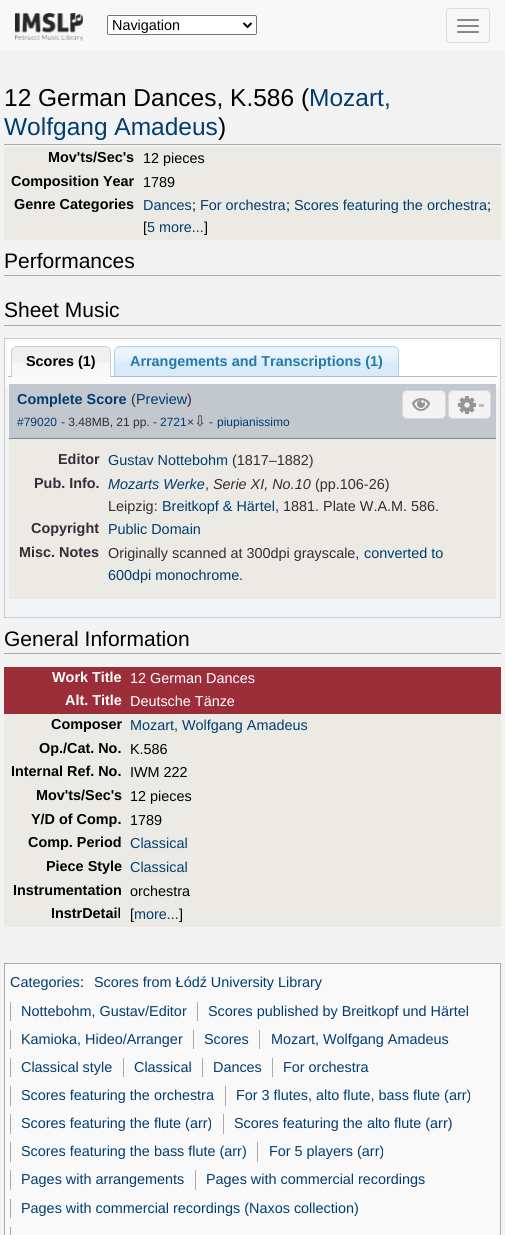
import math
import cairocffi as cairo

surface = cairo.ImageSurface(cairo.FORMAT_RGB24, 505, 1235)
ctx = cairo.Context(surface)
options = cairo.FontOptions()
options.set_hint_metrics(cairo.HINT_METRICS_OFF)
options.set_hint_style(cairo.HINT_STYLE_NONE)
ctx.set_font_options(options)
ctx.set_miter_limit(4)


def rgb(r, g, b):
    ctx.set_source_rgb(r / 255, g / 255, b / 255)


def face(family, size, italic, bold):
    ctx.select_font_face(family, cairo.FONT_SLANT_ITALIC if italic else cairo.FONT_SLANT_NORMAL, cairo.FONT_WEIGHT_BOLD if bold else cairo.FONT_WEIGHT_NORMAL)
    ctx.set_font_size(size)


def label(x, y, s):
    ctx.move_to(x, y)
    ctx.show_text(s)


def rect(x, y, w, h):
    ctx.rectangle(x, y, w, h)
    ctx.fill()


def rrect(x, y, w, h, r):
    ctx.new_sub_path()
    for i, (u, v) in enumerate([(x + w - r, y + h - r), (x + r, y + h - r), (x + r, y + r), (x + w - r, y + r)]):
        ctx.arc(u, v, r, i * math.pi / 2, (i + 1) * math.pi / 2)
    ctx.close_path()


def image(path, x, y, w, h):
    ctx.save()
    ctx.set_source_surface(cairo.ImageSurface.create_from_png(path), x, y)
    ctx.rectangle(x, y, w, h)
    ctx.fill()
    ctx.restore()


rgb(243, 243, 243)
ctx.paint()
rgb(248, 248, 248)
rect(0, 0, 505, 51)
image('image0.png', 15, 13, 68, 28)
rgb(255, 255, 255)
rrect(107.5, 15.5, 149, 19, 1.5)
ctx.fill_preserve()
rgb(118, 118, 118)
ctx.set_line_width(1)
ctx.stroke()
ctx.new_path()
ctx.move_to(243.5, 23)
ctx.line_to(247.5, 27)
ctx.line_to(251.5, 23)
rgb(0, 0, 0)
ctx.set_line_width(2)
ctx.stroke()
face('Liberation Sans', 14.4, 0, 0)
label(112, 30, 'Navigation')
rrect(446.5, 8.5, 43, 34, 3.5)
rgb(221, 221, 221)
ctx.set_line_width(1)
ctx.stroke()
rgb(136, 136, 136)
rrect(457, 19, 22, 2, 1)
ctx.fill()
rrect(457, 25, 22, 2, 1)
ctx.fill()
rrect(457, 31, 22, 2, 1)
ctx.fill()
rgb(170, 170, 170)
rect(4, 144, 497, 1)
face('Liberation Sans', 24.5, 0, 0)
rgb(0, 0, 0)
label(4, 106, '12 German Dances, K.586 (')
rgb(0, 61, 112)
label(309, 106, 'Mozart,')
label(4, 135, 'Wolfgang Amadeus')
rgb(0, 0, 0)
label(218, 135, ')')
rgb(235, 234, 228)
rect(4, 147, 497, 93)
face('Liberation Sans', 14.4, 0, 1)
rgb(0, 0, 0)
label(48, 162, 'Mov\'ts/Sec\'s')
face('Liberation Sans', 14.4, 0, 0)
label(143, 163, '12 pieces')
face('Liberation Sans', 14.4, 0, 1)
label(11, 186, 'Composition Year')
face('Liberation Sans', 14.4, 0, 0)
label(143, 187, '1789')
face('Liberation Sans', 14.4, 0, 1)
label(14, 209, 'Genre Categories')
face('Liberation Sans', 14.4, 0, 0)
rgb(0, 61, 112)
label(143, 210, 'Dances')
rgb(0, 0, 0)
label(192, 210, ';')
rgb(0, 61, 112)
label(200, 210, 'For orchestra')
rgb(0, 0, 0)
label(286, 210, ';')
rgb(0, 61, 112)
label(294, 210, 'Scores featuring the orchestra')
rgb(0, 0, 0)
label(487, 210, ';')
label(143, 232, '[')
rgb(0, 61, 112)
label(147, 232, '5 more...')
rgb(0, 0, 0)
label(204, 232, ']')
rgb(170, 170, 170)
rect(4, 275, 497, 1)
face('Liberation Sans', 21, 0, 0)
rgb(0, 0, 0)
label(4, 268, 'Performances')
rgb(170, 170, 170)
rect(4, 325, 497, 1)
rgb(0, 0, 0)
label(4, 317, 'Sheet Music')
rgb(242, 245, 247)
rect(5, 387, 495, 230)
rgb(249, 250, 251)
rect(5, 339, 495, 48)
ctx.rectangle(4.5, 338.5, 496, 279)
rgb(204, 204, 204)
ctx.stroke()
rgb(255, 255, 255)
rect(8, 342, 489, 34)
rgb(187, 187, 187)
rect(8, 376, 489, 1)
rgb(240, 240, 240)
ctx.new_path()
ctx.move_to(17, 346)
ctx.line_to(105, 346)
ctx.curve_to(108.5, 346, 111, 348.5, 111, 352)
ctx.line_to(111, 377)
ctx.line_to(11, 377)
ctx.line_to(11, 352)
ctx.curve_to(11, 348.5, 13.5, 346, 17, 346)
ctx.close_path()
ctx.fill()
rgb(248, 248, 248)
rect(12, 363, 98, 14)
rgb(204, 204, 204)
ctx.set_fill_rule(cairo.FILL_RULE_EVEN_ODD)
ctx.new_path()
ctx.move_to(17, 346)
ctx.line_to(105, 346)
ctx.curve_to(108, 346, 111, 349, 111, 352)
ctx.line_to(111, 377)
ctx.line_to(11, 377)
ctx.line_to(11, 352)
ctx.curve_to(11, 349, 14, 346, 17, 346)
ctx.close_path()
ctx.move_to(17, 347)
ctx.line_to(105, 347)
ctx.curve_to(108, 347, 110, 349, 110, 352)
ctx.line_to(110, 377)
ctx.line_to(12, 377)
ctx.line_to(12, 352)
ctx.curve_to(12, 349, 14, 347, 17, 347)
ctx.close_path()
ctx.fill()
face('Liberation Sans', 14.4, 0, 1)
rgb(0, 0, 0)
label(26, 366, 'Scores (1)')
rgb(215, 235, 249)
ctx.new_path()
ctx.move_to(120, 346)
ctx.line_to(393, 346)
ctx.curve_to(396.5, 346, 399, 348.5, 399, 352)
ctx.line_to(399, 376)
ctx.line_to(114, 376)
ctx.line_to(114, 352)
ctx.curve_to(114, 348.5, 116.5, 346, 120, 346)
ctx.close_path()
ctx.fill()
image('image1.png', 114, 346, 285, 17)
rgb(174, 208, 234)
ctx.new_path()
ctx.move_to(120, 346)
ctx.line_to(393, 346)
ctx.curve_to(396, 346, 399, 349, 399, 352)
ctx.line_to(399, 376)
ctx.line_to(114, 376)
ctx.line_to(114, 352)
ctx.curve_to(114, 349, 117, 346, 120, 346)
ctx.close_path()
ctx.move_to(120, 347)
ctx.line_to(393, 347)
ctx.curve_to(396, 347, 398, 349, 398, 352)
ctx.line_to(398, 376)
ctx.line_to(115, 376)
ctx.line_to(115, 352)
ctx.curve_to(115, 349, 117, 347, 120, 347)
ctx.close_path()
ctx.fill()
rgb(39, 121, 170)
label(130, 366, 'Arrangements and Transcriptions (1)')
rgb(194, 200, 205)
rect(9, 384, 487, 54)
rgb(120, 135, 145)
rect(9, 438, 487, 1)
rgb(0, 61, 112)
label(17, 404, 'Complete Score')
face('Liberation Sans', 14.4, 0, 0)
rgb(54, 43, 54)
label(131, 404, '(')
rgb(0, 61, 112)
label(136, 404, 'Preview')
rgb(54, 43, 54)
label(187, 404, ')')
face('Liberation Sans', 12, 0, 0)
rgb(0, 61, 112)
label(17, 426, '#79020')
rgb(54, 43, 54)
label(61, 426, '- 3.48MB, 21 pp. -')
rgb(0, 61, 112)
label(160, 426, '2721')
rgb(54, 43, 54)
label(187, 426, '×')
face('DejaVu Sans', 14.4, 0, 0)
label(194, 426, '⇩')
face('Liberation Sans', 12, 0, 0)
label(209, 426, '-')
rgb(0, 61, 112)
label(217, 426, 'piupianissimo')
rgb(243, 243, 243)
rrect(402.5, 390.5, 43, 28, 4.5)
ctx.fill_preserve()
rgb(217, 217, 217)
ctx.stroke()
image('image2.png', 412, 398, 18, 13)
rgb(243, 243, 243)
rrect(448.5, 390.5, 42, 28, 4.5)
ctx.fill_preserve()
rgb(217, 217, 217)
ctx.stroke()
image('image3.png', 458, 396, 18, 18)
rgb(192, 192, 192)
rect(479, 404, 5, 3)
rgb(235, 234, 228)
rect(9, 439, 487, 160)
face('Liberation Sans', 14.4, 0, 1)
rgb(54, 43, 54)
label(58, 464, 'Editor')
face('Liberation Sans', 14.4, 0, 0)
rgb(0, 61, 112)
label(108, 465, 'Gustav Nottebohm')
rgb(54, 43, 54)
label(232, 465, '(1817–1882)')
face('Liberation Sans', 14.4, 0, 1)
label(34, 488, 'Pub. Info.')
face('Liberation Sans', 14.4, 1, 0)
rgb(0, 61, 112)
label(108, 489, 'Mozarts Werke')
face('Liberation Sans', 14.4, 0, 0)
rgb(54, 43, 54)
label(205, 489, ',')
face('Liberation Sans', 14.4, 1, 0)
label(213, 489, 'Serie XI, No.10')
face('Liberation Sans', 14.4, 0, 0)
label(315, 489, '(pp.106-26)')
label(108, 511, 'Leipzig:')
rgb(0, 61, 112)
label(162, 511, 'Breitkopf & Härtel')
rgb(54, 43, 54)
label(275, 511, ', 1881. Plate W.A.M. 586.')
face('Liberation Sans', 14.4, 0, 1)
label(31, 533, 'Copyright')
face('Liberation Sans', 14.4, 0, 0)
rgb(0, 61, 112)
label(108, 534, 'Public Domain')
face('Liberation Sans', 14.4, 0, 1)
rgb(54, 43, 54)
label(19, 557, 'Misc. Notes')
face('Liberation Sans', 14.4, 0, 0)
label(108, 558, 'Originally scanned at 300dpi grayscale,')
rgb(0, 61, 112)
label(364, 558, 'converted to')
label(108, 580, '600dpi monochrome')
rgb(54, 43, 54)
label(239, 580, '.')
rgb(170, 170, 170)
rect(4, 653, 497, 1)
face('Liberation Sans', 21, 0, 0)
rgb(0, 0, 0)
label(4, 646, 'General Information')
rgb(235, 234, 228)
rect(4, 714, 497, 213)
rgb(156, 46, 58)
rect(4, 667, 497, 23)
face('Liberation Sans', 14.4, 0, 1)
rgb(255, 255, 255)
label(52, 682, 'Work Title')
face('Liberation Sans', 14.4, 0, 0)
label(130, 683, '12 German Dances')
rgb(156, 46, 58)
rect(4, 690, 497, 24)
face('Liberation Sans', 14.4, 0, 1)
rgb(255, 255, 255)
label(65, 705, 'Alt. Title')
face('Liberation Sans', 14.4, 0, 0)
label(130, 706, 'Deutsche Tänze')
face('Liberation Sans', 14.4, 0, 1)
rgb(0, 0, 0)
label(51, 729, 'Composer')
face('Liberation Sans', 14.4, 0, 0)
rgb(0, 61, 112)
label(130, 730, 'Mozart, Wolfgang Amadeus')
face('Liberation Sans', 14.4, 0, 1)
rgb(0, 0, 0)
label(39, 753, 'Op./Cat. No.')
face('Liberation Sans', 14.4, 0, 0)
label(130, 754, 'K.586')
face('Liberation Sans', 14.4, 0, 1)
label(11, 776, 'Internal Ref. No.')
face('Liberation Sans', 14.4, 0, 0)
label(130, 777, 'IWM 222')
face('Liberation Sans', 14.4, 0, 1)
label(36, 800, 'Mov\'ts/Sec\'s')
face('Liberation Sans', 14.4, 0, 0)
label(130, 801, '12 pieces')
face('Liberation Sans', 14.4, 0, 1)
label(31, 824, 'Y/D of Comp.')
face('Liberation Sans', 14.4, 0, 0)
label(130, 825, '1789')
face('Liberation Sans', 14.4, 0, 1)
label(28, 847, 'Comp. Period')
face('Liberation Sans', 14.4, 0, 0)
rgb(0, 61, 112)
label(130, 848, 'Classical')
face('Liberation Sans', 14.4, 0, 1)
rgb(0, 0, 0)
label(46, 871, 'Piece Style')
face('Liberation Sans', 14.4, 0, 0)
rgb(0, 61, 112)
label(130, 872, 'Classical')
face('Liberation Sans', 14.4, 0, 1)
rgb(0, 0, 0)
label(13, 895, 'Instrumentation')
face('Liberation Sans', 14.4, 0, 0)
label(130, 896, 'orchestra')
face('Liberation Sans', 14.4, 0, 1)
label(51, 918, 'InstrDetail')
face('Liberation Sans', 14.4, 0, 0)
label(130, 919, '[')
rgb(0, 61, 112)
label(134, 919, 'more...')
rgb(0, 0, 0)
label(179, 919, ']')
rgb(249, 249, 249)
ctx.rectangle(4.5, 963.5, 496, 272)
ctx.fill_preserve()
rgb(170, 170, 170)
ctx.stroke()
rgb(0, 61, 112)
label(10, 987, 'Categories')
label(94, 987, 'Scores from Łódź University Library')
rgb(170, 170, 170)
rect(10, 1002, 1, 19)
rgb(0, 61, 112)
label(21, 1016, 'Nottebohm, Gustav/Editor')
rgb(170, 170, 170)
rect(197, 1002, 1, 19)
rgb(0, 61, 112)
label(208, 1016, 'Scores published by Breitkopf und Härtel')
rgb(170, 170, 170)
rect(10, 1030, 1, 19)
rgb(0, 61, 112)
label(21, 1044, 'Kamioka, Hideo/Arranger')
rgb(170, 170, 170)
rect(193, 1030, 1, 19)
rgb(0, 61, 112)
label(204, 1044, 'Scores')
rgb(170, 170, 170)
rect(259, 1030, 1, 19)
rgb(0, 61, 112)
label(271, 1044, 'Mozart, Wolfgang Amadeus')
rgb(170, 170, 170)
rect(10, 1058, 1, 19)
rgb(0, 61, 112)
label(21, 1072, 'Classical style')
rgb(170, 170, 170)
rect(123, 1058, 1, 19)
rgb(0, 61, 112)
label(134, 1072, 'Classical')
rgb(170, 170, 170)
rect(202, 1058, 1, 19)
rgb(0, 61, 112)
label(213, 1072, 'Dances')
rgb(170, 170, 170)
rect(272, 1058, 1, 19)
rgb(0, 61, 112)
label(283, 1072, 'For orchestra')
rgb(170, 170, 170)
rect(10, 1086, 1, 20)
rgb(0, 61, 112)
label(21, 1100, 'Scores featuring the orchestra')
rgb(170, 170, 170)
rect(225, 1086, 1, 20)
rgb(0, 61, 112)
label(236, 1100, 'For 3 flutes, alto flute, bass flute (arr)')
rgb(170, 170, 170)
rect(10, 1114, 1, 20)
rgb(0, 61, 112)
label(21, 1128, 'Scores featuring the flute (arr)')
rgb(170, 170, 170)
rect(223, 1114, 1, 20)
rgb(0, 61, 112)
label(234, 1128, 'Scores featuring the alto flute (arr)')
rgb(170, 170, 170)
rect(10, 1142, 1, 20)
rgb(0, 61, 112)
label(21, 1156, 'Scores featuring the bass flute (arr)')
rgb(170, 170, 170)
rect(257, 1142, 1, 20)
rgb(0, 61, 112)
label(269, 1156, 'For 5 players (arr)')
rgb(170, 170, 170)
rect(10, 1170, 1, 20)
rgb(0, 61, 112)
label(21, 1184, 'Pages with arrangements')
rgb(170, 170, 170)
rect(195, 1170, 1, 20)
rgb(0, 61, 112)
label(206, 1184, 'Pages with commercial recordings')
rgb(170, 170, 170)
rect(10, 1199, 1, 19)
rgb(0, 61, 112)
label(21, 1213, 'Pages with commercial recordings (Naxos collection)')
rgb(170, 170, 170)
rect(10, 1227, 1, 8)
rgb(0, 0, 0)
label(80, 987, ':')
surface.write_to_png('render.png')
